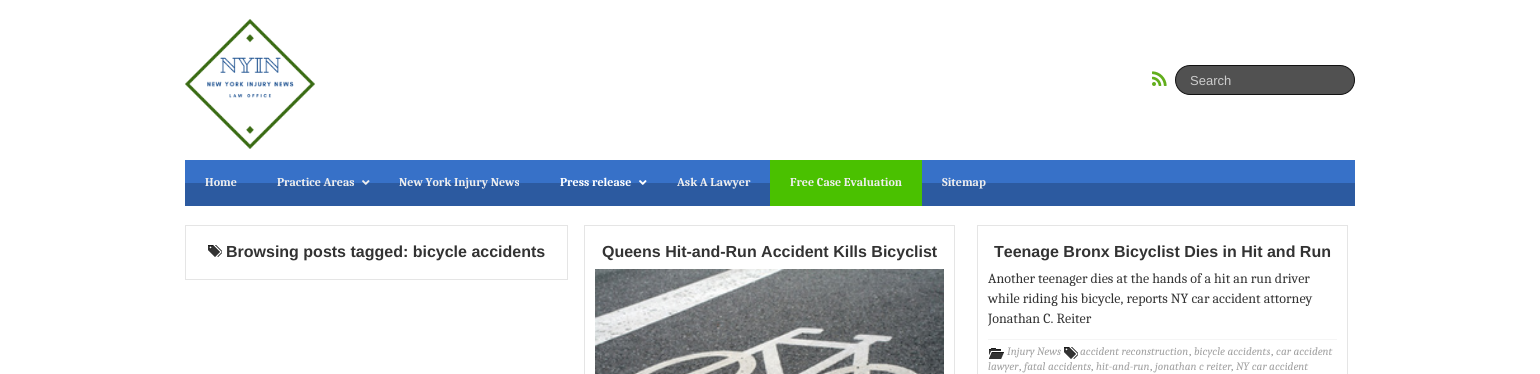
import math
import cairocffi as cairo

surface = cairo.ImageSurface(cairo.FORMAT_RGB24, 1540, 374)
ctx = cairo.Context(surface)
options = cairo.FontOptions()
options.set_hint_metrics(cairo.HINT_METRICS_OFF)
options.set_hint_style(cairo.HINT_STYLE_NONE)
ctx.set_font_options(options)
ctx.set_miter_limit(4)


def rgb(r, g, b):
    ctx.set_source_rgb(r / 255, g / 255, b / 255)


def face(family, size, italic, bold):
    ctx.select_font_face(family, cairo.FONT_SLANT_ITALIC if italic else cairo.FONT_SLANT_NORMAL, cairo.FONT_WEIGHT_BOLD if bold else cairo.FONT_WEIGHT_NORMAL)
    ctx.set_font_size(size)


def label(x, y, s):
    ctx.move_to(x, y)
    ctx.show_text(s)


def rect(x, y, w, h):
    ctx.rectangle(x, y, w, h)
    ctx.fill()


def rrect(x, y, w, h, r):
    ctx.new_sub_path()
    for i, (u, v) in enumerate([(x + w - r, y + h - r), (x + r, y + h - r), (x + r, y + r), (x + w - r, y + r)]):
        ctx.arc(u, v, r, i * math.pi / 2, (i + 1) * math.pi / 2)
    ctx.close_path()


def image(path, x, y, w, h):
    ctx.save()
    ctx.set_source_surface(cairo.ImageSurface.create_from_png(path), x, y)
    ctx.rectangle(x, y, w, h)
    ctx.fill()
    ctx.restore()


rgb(255, 255, 255)
ctx.paint()
image('image0.png', 185, 19, 130, 130)
image('image1.png', 1152, 71, 15, 15)
rgb(81, 81, 81)
rrect(1175.5, 65.5, 179, 29, 14.5)
ctx.fill_preserve()
rgb(17, 17, 17)
ctx.set_line_width(1)
ctx.stroke()
face('Liberation Sans', 13, 0, 0)
rgb(204, 204, 204)
label(1190, 85, 'Search')
rgb(55, 113, 200)
rect(185, 160, 1170, 23)
rgb(44, 90, 160)
rect(185, 183, 1170, 23)
face('Caladea', 12, 0, 1)
rgb(238, 238, 238)
label(205, 186, 'Home')
label(277, 186, 'Practice Areas')
image('image2.png', 362, 180, 8, 5)
label(399, 186, 'New York Injury News')
rgb(255, 255, 255)
label(560, 186, 'Press release')
image('image3.png', 639, 180, 8, 5)
rgb(238, 238, 238)
label(677, 186, 'Ask A Lawyer')
rgb(74, 193, 0)
rect(770, 160, 152, 46)
rgb(238, 238, 238)
label(790, 186, 'Free Case Evaluation')
label(942, 186, 'Sitemap')
ctx.rectangle(185.5, 225.5, 382, 54)
rgb(229, 229, 229)
ctx.stroke()
image('image4.png', 208, 245, 14, 12)
face('Liberation Sans', 16, 0, 1)
rgb(51, 51, 51)
label(226, 257, 'Browsing posts tagged: bicycle accidents')
ctx.rectangle(584.5, 225.5, 370, 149)
rgb(229, 229, 229)
ctx.stroke()
rgb(51, 51, 51)
label(602, 257, 'Queens Hit-and-Run Accident Kills Bicyclist')
image('image5.png', 595, 269, 349, 105)
ctx.rectangle(977.5, 225.5, 370, 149)
rgb(229, 229, 229)
ctx.stroke()
rgb(51, 51, 51)
label(994, 257, 'Teenage Bronx Bicyclist Dies in Hit and Run')
face('Caladea', 14, 0, 0)
label(988, 283, 'Another teenager dies at the hands of a hit an run driver')
label(988, 303, 'while riding his bicycle, reports NY car accident attorney')
label(988, 323, 'Jonathan C. Reiter')
rgb(245, 245, 245)
rect(988, 339, 349, 1)
image('image6.png', 989, 348, 15, 11)
face('Caladea', 11.25, 1, 0)
rgb(161, 161, 161)
label(1007, 355, 'Injury News')
image('image4.png', 1064, 347, 14, 12)
label(1080, 355, 'accident reconstruction')
face('Caladea', 11.25, 0, 0)
rgb(136, 136, 136)
label(1189, 355, ',')
face('Caladea', 11.25, 1, 0)
rgb(161, 161, 161)
label(1194, 355, 'bicycle accidents')
face('Caladea', 11.25, 0, 0)
rgb(136, 136, 136)
label(1271, 355, ',')
face('Caladea', 11.25, 1, 0)
rgb(161, 161, 161)
label(1276, 355, 'car accident')
label(988, 370, 'lawyer')
face('Caladea', 11.25, 0, 0)
rgb(136, 136, 136)
label(1019, 370, ',')
face('Caladea', 11.25, 1, 0)
rgb(161, 161, 161)
label(1024, 370, 'fatal accidents')
face('Caladea', 11.25, 0, 0)
rgb(136, 136, 136)
label(1091, 370, ',')
face('Caladea', 11.25, 1, 0)
rgb(161, 161, 161)
label(1096, 370, 'hit-and-run')
face('Caladea', 11.25, 0, 0)
rgb(136, 136, 136)
label(1150, 370, ',')
face('Caladea', 11.25, 1, 0)
rgb(161, 161, 161)
label(1155, 370, 'jonathan c reiter')
face('Caladea', 11.25, 0, 0)
rgb(136, 136, 136)
label(1231, 370, ',')
face('Caladea', 11.25, 1, 0)
rgb(161, 161, 161)
label(1236, 370, 'NY car accident')
surface.write_to_png('render.png')
